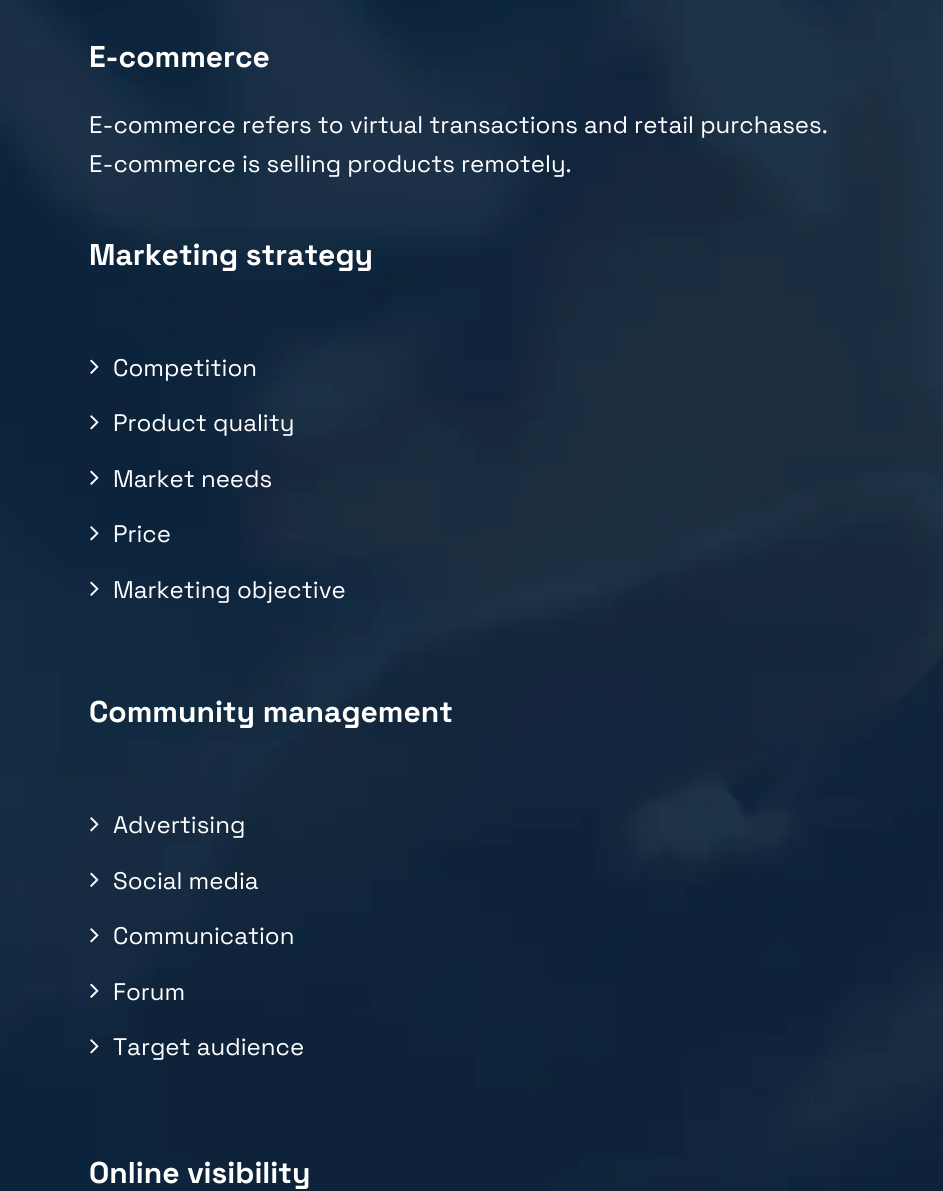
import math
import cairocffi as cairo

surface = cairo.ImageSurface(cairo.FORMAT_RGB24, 943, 1191)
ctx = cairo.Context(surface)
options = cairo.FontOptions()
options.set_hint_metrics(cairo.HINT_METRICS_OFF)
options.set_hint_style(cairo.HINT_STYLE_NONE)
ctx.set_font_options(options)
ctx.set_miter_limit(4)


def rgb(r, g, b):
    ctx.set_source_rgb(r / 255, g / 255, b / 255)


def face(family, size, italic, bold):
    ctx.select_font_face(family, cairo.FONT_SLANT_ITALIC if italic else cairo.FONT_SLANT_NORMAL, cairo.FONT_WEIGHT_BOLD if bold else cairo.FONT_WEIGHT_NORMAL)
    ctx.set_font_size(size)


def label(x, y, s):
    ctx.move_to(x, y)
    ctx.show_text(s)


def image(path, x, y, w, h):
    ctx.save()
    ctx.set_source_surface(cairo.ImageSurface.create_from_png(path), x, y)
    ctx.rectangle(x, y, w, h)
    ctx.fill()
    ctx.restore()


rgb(255, 255, 255)
ctx.paint()
image('image0.png', 0, 0, 943, 1191)
face('Space Grotesk', 30, 0, 1)
rgb(255, 255, 255)
label(89, 67, 'E-commerce')
face('Space Grotesk', 24, 0, 0)
label(89, 133, 'E-commerce refers to virtual transactions and retail purchases.')
label(89, 172, 'E-commerce is selling products remotely.')
face('Space Grotesk', 30, 0, 1)
label(89, 265, 'Marketing strategy')
image('image1.png', 90, 359, 9, 15)
face('Space Grotesk', 24, 0, 0)
label(113, 376, 'Competition')
image('image2.png', 90, 415, 9, 15)
label(113, 431, 'Product quality')
image('image3.png', 90, 470, 9, 15)
label(113, 487, 'Market needs')
image('image4.png', 90, 526, 9, 15)
label(113, 542, 'Price')
image('image5.png', 90, 581, 9, 15)
label(113, 598, 'Marketing objective')
face('Space Grotesk', 30, 0, 1)
label(89, 722, 'Community management')
image('image6.png', 90, 817, 9, 15)
face('Space Grotesk', 24, 0, 0)
label(113, 833, 'Advertising')
image('image7.png', 90, 872, 9, 15)
label(113, 889, 'Social media')
image('image8.png', 90, 928, 9, 15)
label(113, 944, 'Communication')
image('image9.png', 90, 983, 9, 15)
label(113, 1000, 'Forum')
image('image10.png', 90, 1039, 9, 15)
label(113, 1055, 'Target audience')
face('Space Grotesk', 30, 0, 1)
label(89, 1183, 'Online visibility')
surface.write_to_png('render.png')
